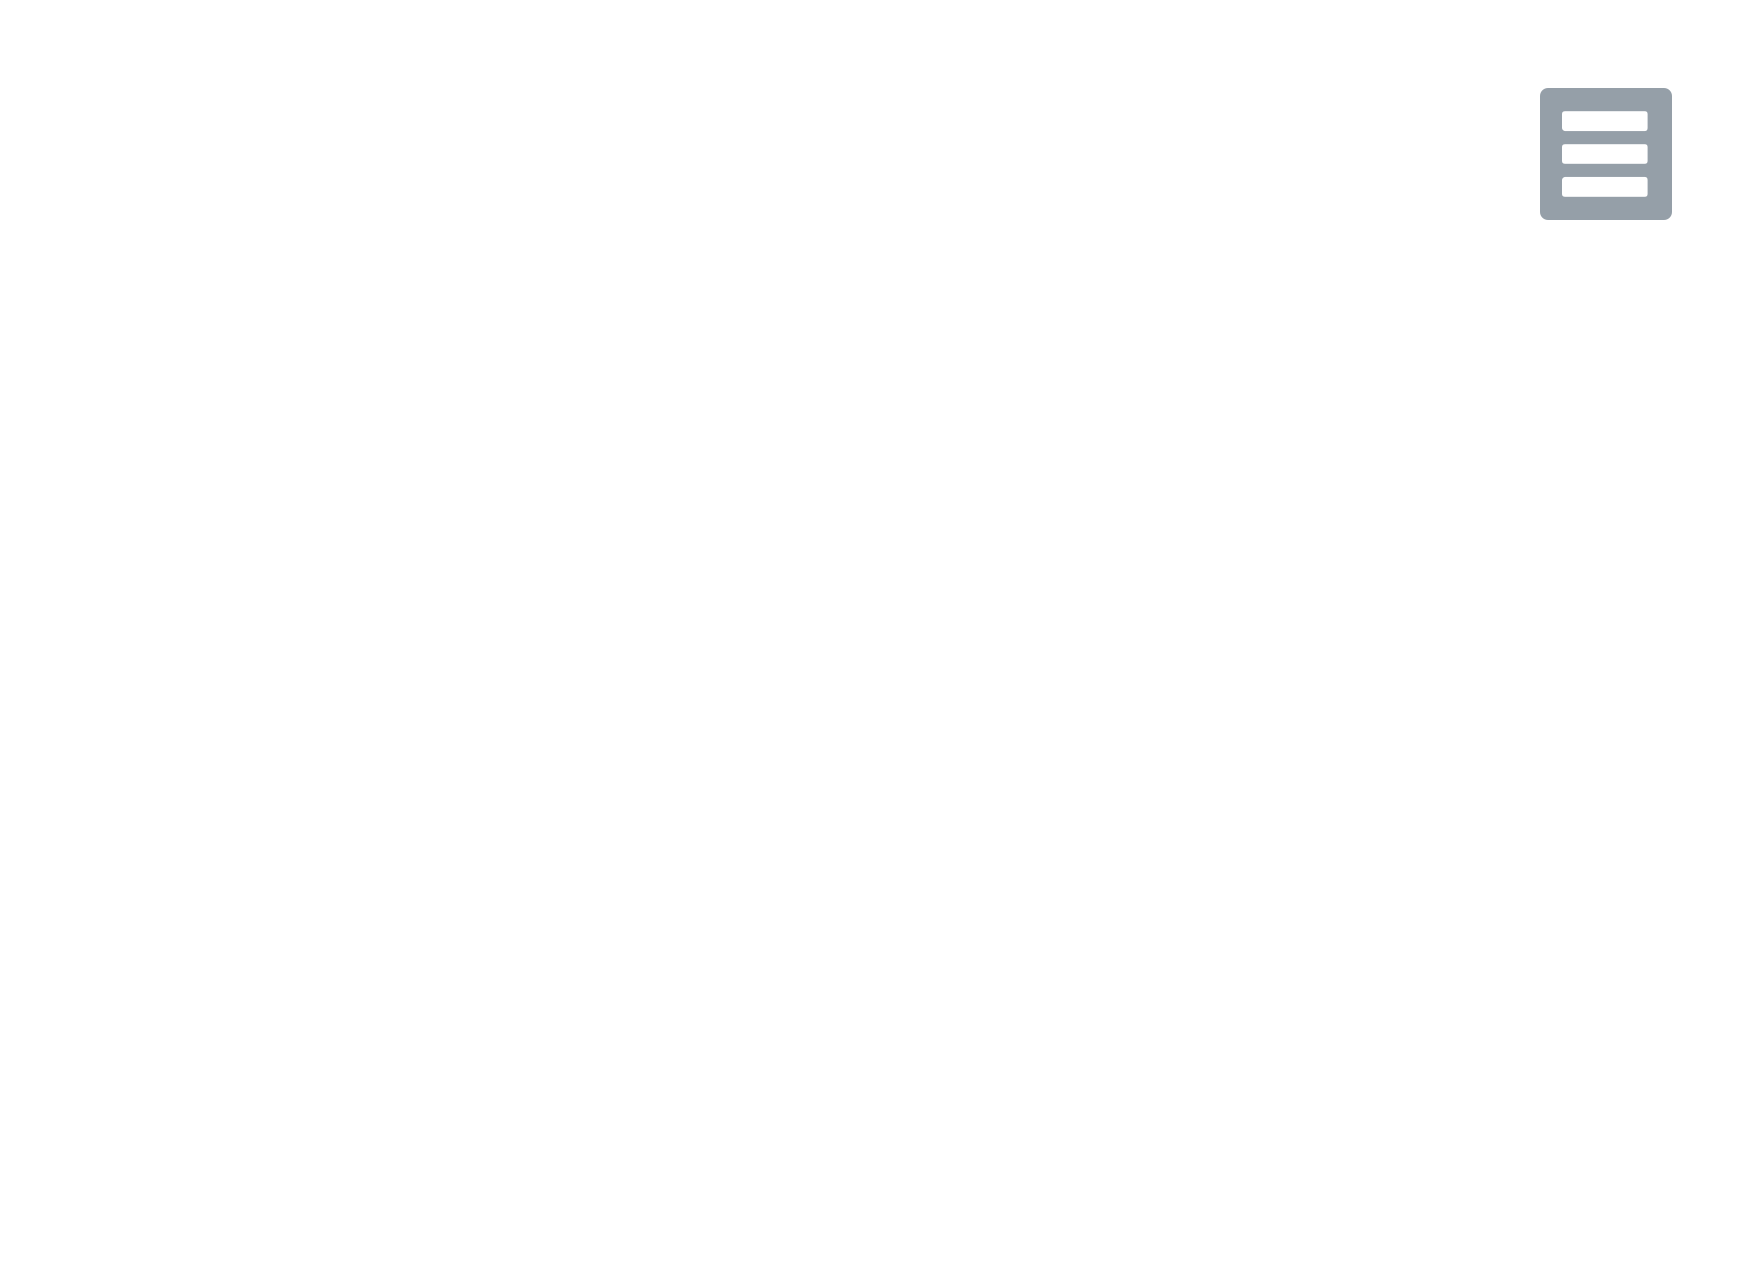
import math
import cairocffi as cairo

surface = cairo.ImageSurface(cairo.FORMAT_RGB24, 1758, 1264)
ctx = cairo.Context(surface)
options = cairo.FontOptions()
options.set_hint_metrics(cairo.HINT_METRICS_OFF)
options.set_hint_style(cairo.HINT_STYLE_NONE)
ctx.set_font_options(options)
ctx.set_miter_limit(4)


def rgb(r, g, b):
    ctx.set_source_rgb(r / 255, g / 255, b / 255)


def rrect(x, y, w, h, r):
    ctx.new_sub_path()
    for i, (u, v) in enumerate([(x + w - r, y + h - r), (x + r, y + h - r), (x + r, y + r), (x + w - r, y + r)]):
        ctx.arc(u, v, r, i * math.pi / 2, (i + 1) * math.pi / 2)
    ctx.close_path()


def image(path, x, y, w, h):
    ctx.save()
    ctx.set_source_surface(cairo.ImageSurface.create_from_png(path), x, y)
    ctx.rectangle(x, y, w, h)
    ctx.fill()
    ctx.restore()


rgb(255, 255, 255)
ctx.paint()
rgb(149, 159, 168)
rrect(1540, 88, 132, 132, 8)
ctx.fill()
image('image0.png', 1562, 111, 86, 86)
surface.write_to_png('render.png')
